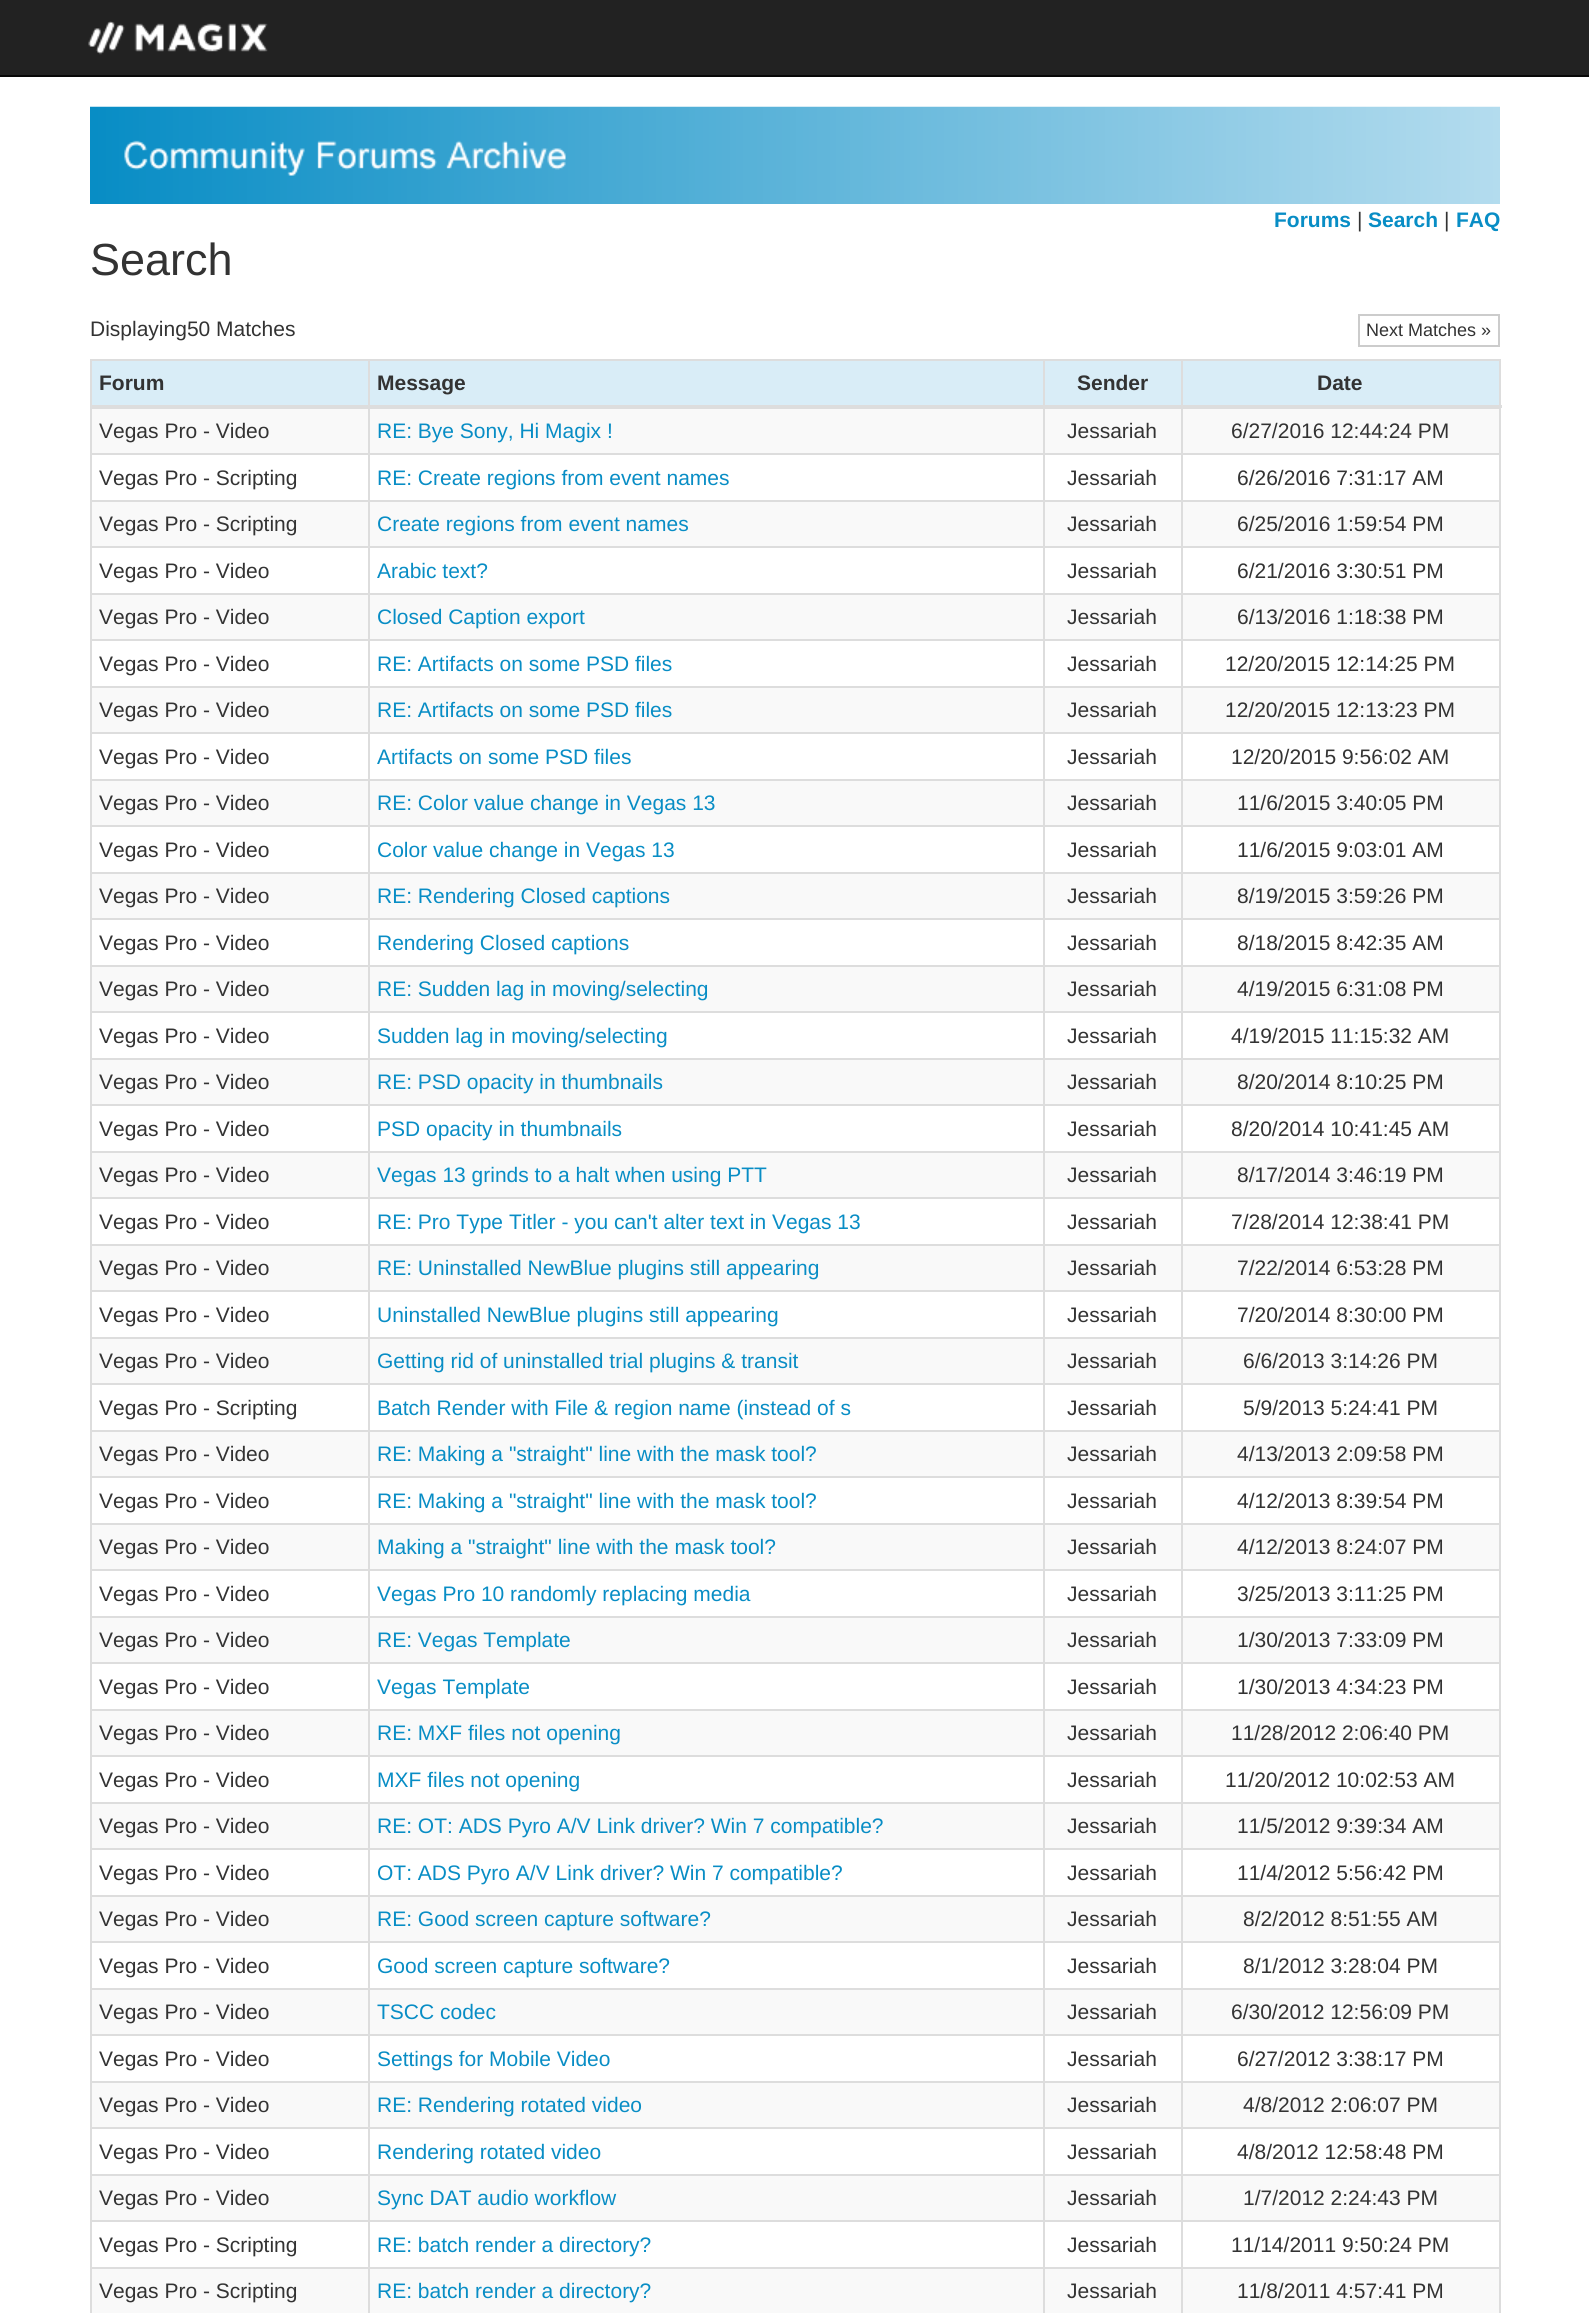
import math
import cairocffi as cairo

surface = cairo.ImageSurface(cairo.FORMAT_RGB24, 1589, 2313)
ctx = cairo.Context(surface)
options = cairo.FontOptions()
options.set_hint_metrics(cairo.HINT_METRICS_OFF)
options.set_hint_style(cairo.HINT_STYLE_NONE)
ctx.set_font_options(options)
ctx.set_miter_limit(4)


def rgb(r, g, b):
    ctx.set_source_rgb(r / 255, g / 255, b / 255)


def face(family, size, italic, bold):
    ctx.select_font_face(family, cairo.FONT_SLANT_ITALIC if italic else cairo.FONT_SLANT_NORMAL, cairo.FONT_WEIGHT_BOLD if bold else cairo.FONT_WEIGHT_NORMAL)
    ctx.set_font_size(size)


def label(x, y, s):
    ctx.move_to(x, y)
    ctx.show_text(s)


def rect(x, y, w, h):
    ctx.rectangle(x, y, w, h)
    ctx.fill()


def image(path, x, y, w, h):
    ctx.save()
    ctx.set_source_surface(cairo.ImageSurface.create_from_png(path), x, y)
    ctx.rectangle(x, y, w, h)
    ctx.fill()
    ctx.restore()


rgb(255, 255, 255)
ctx.paint()
rgb(34, 34, 34)
rect(0, 0, 1589, 75)
rgb(8, 8, 8)
rect(0, 75, 1589, 2)
image('image0.png', 88, 21, 180, 34)
image('image1.png', 90, 106, 1410, 98)
face('Liberation Sans', 21, 0, 1)
rgb(8, 141, 197)
label(1274, 227, 'Forums')
face('Liberation Sans', 21, 0, 0)
rgb(51, 51, 51)
label(1357, 227, '|')
face('Liberation Sans', 21, 0, 1)
rgb(8, 141, 197)
label(1368, 227, 'Search')
face('Liberation Sans', 21, 0, 0)
rgb(51, 51, 51)
label(1444, 227, '|')
face('Liberation Sans', 21, 0, 1)
rgb(8, 141, 197)
label(1456, 227, 'FAQ')
face('Liberation Sans', 45, 0, 0)
rgb(51, 51, 51)
label(90, 275, 'Search')
face('Liberation Sans', 21, 0, 0)
label(90, 336, 'Displaying50 Matches')
ctx.rectangle(1359, 315, 140, 31)
rgb(204, 204, 204)
ctx.stroke()
face('Liberation Sans', 18, 0, 0)
rgb(51, 51, 51)
label(1366, 336, 'Next Matches »')
rgb(221, 221, 221)
rect(90, 359, 1410, 2)
rect(1499, 359, 2, 1954)
rect(90, 359, 2, 1954)
rgb(217, 237, 247)
rect(92, 361, 276, 44)
face('Liberation Sans', 21, 0, 1)
rgb(51, 51, 51)
label(99, 390, 'Forum')
rgb(217, 237, 247)
rect(370, 361, 673, 44)
rgb(51, 51, 51)
label(377, 390, 'Message')
rgb(217, 237, 247)
rect(1045, 361, 136, 44)
rgb(51, 51, 51)
label(1077, 390, 'Sender')
rgb(217, 237, 247)
rect(1183, 361, 316, 44)
rgb(249, 249, 249)
rect(92, 409, 1407, 44)
rgb(221, 221, 221)
rect(1181, 408, 319, 1)
rect(1181, 453, 319, 2)
rect(1181, 500, 319, 2)
rgb(249, 249, 249)
rect(92, 502, 1407, 44)
rgb(221, 221, 221)
rect(1181, 546, 319, 2)
rect(1181, 593, 319, 2)
rgb(249, 249, 249)
rect(92, 595, 1407, 44)
rgb(221, 221, 221)
rect(1181, 639, 319, 2)
rect(1181, 686, 319, 2)
rgb(249, 249, 249)
rect(92, 688, 1407, 44)
rgb(221, 221, 221)
rect(1181, 732, 319, 2)
rect(1181, 779, 319, 2)
rgb(249, 249, 249)
rect(92, 781, 1407, 44)
rgb(221, 221, 221)
rect(1181, 825, 319, 2)
rect(1181, 872, 319, 2)
rgb(249, 249, 249)
rect(92, 874, 1407, 44)
rgb(221, 221, 221)
rect(1181, 918, 319, 2)
rect(1181, 965, 319, 2)
rgb(249, 249, 249)
rect(92, 967, 1407, 44)
rgb(221, 221, 221)
rect(1181, 1011, 319, 2)
rect(1181, 1058, 319, 2)
rgb(249, 249, 249)
rect(92, 1060, 1407, 44)
rgb(221, 221, 221)
rect(1181, 1104, 319, 2)
rect(1181, 1151, 319, 2)
rgb(249, 249, 249)
rect(92, 1153, 1407, 44)
rgb(221, 221, 221)
rect(1181, 1197, 319, 2)
rect(1181, 1244, 319, 2)
rgb(249, 249, 249)
rect(92, 1246, 1407, 44)
rgb(221, 221, 221)
rect(1181, 1290, 319, 2)
rect(1181, 1337, 319, 2)
rgb(249, 249, 249)
rect(92, 1339, 1407, 44)
rgb(221, 221, 221)
rect(1181, 1383, 319, 2)
rect(1181, 1430, 319, 2)
rgb(249, 249, 249)
rect(92, 1432, 1407, 44)
rgb(221, 221, 221)
rect(1181, 1476, 319, 2)
rect(1181, 1523, 319, 2)
rgb(249, 249, 249)
rect(92, 1525, 1407, 44)
rgb(221, 221, 221)
rect(1181, 1569, 319, 2)
rect(1181, 1616, 319, 2)
rgb(249, 249, 249)
rect(92, 1618, 1407, 44)
rgb(221, 221, 221)
rect(1181, 1662, 319, 2)
rect(1181, 1709, 319, 2)
rgb(249, 249, 249)
rect(92, 1711, 1407, 44)
rgb(221, 221, 221)
rect(1181, 1755, 319, 2)
rect(1181, 1802, 319, 2)
rgb(249, 249, 249)
rect(92, 1804, 1407, 44)
rgb(221, 221, 221)
rect(1181, 1848, 319, 2)
rect(1181, 1895, 319, 2)
rgb(249, 249, 249)
rect(92, 1897, 1407, 44)
rgb(221, 221, 221)
rect(1181, 1941, 319, 2)
rect(1181, 1988, 319, 2)
rgb(249, 249, 249)
rect(92, 1990, 1407, 44)
rgb(221, 221, 221)
rect(1181, 2034, 319, 2)
rect(1181, 2081, 319, 2)
rgb(249, 249, 249)
rect(92, 2083, 1407, 44)
rgb(221, 221, 221)
rect(1181, 2127, 319, 2)
rect(1181, 2174, 319, 2)
rgb(249, 249, 249)
rect(92, 2176, 1407, 44)
rgb(221, 221, 221)
rect(1181, 2220, 319, 2)
rect(1181, 2267, 319, 2)
rgb(249, 249, 249)
rect(92, 2269, 1407, 44)
rgb(221, 221, 221)
rect(1181, 2267, 2, 46)
rect(1043, 2267, 139, 2)
rect(1181, 2220, 2, 48)
rect(1043, 2220, 139, 2)
rect(1181, 2174, 2, 48)
rect(1043, 2174, 139, 2)
rect(1181, 2127, 2, 48)
rect(1043, 2127, 139, 2)
rect(1181, 2081, 2, 48)
rect(1043, 2081, 139, 2)
rect(1181, 2034, 2, 48)
rect(1043, 2034, 139, 2)
rect(1181, 1988, 2, 48)
rect(1043, 1988, 139, 2)
rect(1181, 1941, 2, 48)
rect(1043, 1941, 139, 2)
rect(1181, 1895, 2, 48)
rect(1043, 1895, 139, 2)
rect(1181, 1848, 2, 48)
rect(1043, 1848, 139, 2)
rect(1181, 1802, 2, 48)
rect(1043, 1802, 139, 2)
rect(1181, 1755, 2, 48)
rect(1043, 1755, 139, 2)
rect(1181, 1709, 2, 48)
rect(1043, 1709, 139, 2)
rect(1181, 1662, 2, 48)
rect(1043, 1662, 139, 2)
rect(1181, 1616, 2, 48)
rect(1043, 1616, 139, 2)
rect(1181, 1569, 2, 48)
rect(1043, 1569, 139, 2)
rect(1181, 1523, 2, 48)
rect(1043, 1523, 139, 2)
rect(1181, 1476, 2, 48)
rect(1043, 1476, 139, 2)
rect(1181, 1430, 2, 48)
rect(1043, 1430, 139, 2)
rect(1181, 1383, 2, 48)
rect(1043, 1383, 139, 2)
rect(1181, 1337, 2, 48)
rect(1043, 1337, 139, 2)
rect(1181, 1290, 2, 48)
rect(1043, 1290, 139, 2)
rect(1181, 1244, 2, 48)
rect(1043, 1244, 139, 2)
rect(1181, 1197, 2, 48)
rect(1043, 1197, 139, 2)
rect(1181, 1151, 2, 48)
rect(1043, 1151, 139, 2)
rect(1181, 1104, 2, 48)
rect(1043, 1104, 139, 2)
rect(1181, 1058, 2, 48)
rect(1043, 1058, 139, 2)
rect(1181, 1011, 2, 48)
rect(1043, 1011, 139, 2)
rect(1181, 965, 2, 48)
rect(1043, 965, 139, 2)
rect(1181, 918, 2, 48)
rect(1043, 918, 139, 2)
rect(1181, 872, 2, 48)
rect(1043, 872, 139, 2)
rect(1181, 825, 2, 48)
rect(1043, 825, 139, 2)
rect(1181, 779, 2, 48)
rect(1043, 779, 139, 2)
rect(1181, 732, 2, 48)
rect(1043, 732, 139, 2)
rect(1181, 686, 2, 48)
rect(1043, 686, 139, 2)
rect(1181, 639, 2, 48)
rect(1043, 639, 139, 2)
rect(1181, 593, 2, 48)
rect(1043, 593, 139, 2)
rect(1181, 546, 2, 48)
rect(1043, 546, 139, 2)
rect(1181, 500, 2, 48)
rect(1043, 500, 139, 2)
rect(1181, 453, 2, 48)
rect(1043, 453, 139, 2)
rect(1181, 359, 2, 96)
rect(1043, 408, 139, 1)
rect(1043, 2267, 2, 46)
rect(368, 2267, 676, 2)
rect(1043, 2220, 2, 48)
rect(368, 2220, 676, 2)
rect(1043, 2174, 2, 48)
rect(368, 2174, 676, 2)
rect(1043, 2127, 2, 48)
rect(368, 2127, 676, 2)
rect(1043, 2081, 2, 48)
rect(368, 2081, 676, 2)
rect(1043, 2034, 2, 48)
rect(368, 2034, 676, 2)
rect(1043, 1988, 2, 48)
rect(368, 1988, 676, 2)
rect(1043, 1941, 2, 48)
rect(368, 1941, 676, 2)
rect(1043, 1895, 2, 48)
rect(368, 1895, 676, 2)
rect(1043, 1848, 2, 48)
rect(368, 1848, 676, 2)
rect(1043, 1802, 2, 48)
rect(368, 1802, 676, 2)
rect(1043, 1755, 2, 48)
rect(368, 1755, 676, 2)
rect(1043, 1709, 2, 48)
rect(368, 1709, 676, 2)
rect(1043, 1662, 2, 48)
rect(368, 1662, 676, 2)
rect(1043, 1616, 2, 48)
rect(368, 1616, 676, 2)
rect(1043, 1569, 2, 48)
rect(368, 1569, 676, 2)
rect(1043, 1523, 2, 48)
rect(368, 1523, 676, 2)
rect(1043, 1476, 2, 48)
rect(368, 1476, 676, 2)
rect(1043, 1430, 2, 48)
rect(368, 1430, 676, 2)
rect(1043, 1383, 2, 48)
rect(368, 1383, 676, 2)
rect(1043, 1337, 2, 48)
rect(368, 1337, 676, 2)
rect(1043, 1290, 2, 48)
rect(368, 1290, 676, 2)
rect(1043, 1244, 2, 48)
rect(368, 1244, 676, 2)
rect(1043, 1197, 2, 48)
rect(368, 1197, 676, 2)
rect(1043, 1151, 2, 48)
rect(368, 1151, 676, 2)
rect(1043, 1104, 2, 48)
rect(368, 1104, 676, 2)
rect(1043, 1058, 2, 48)
rect(368, 1058, 676, 2)
rect(1043, 1011, 2, 48)
rect(368, 1011, 676, 2)
rect(1043, 965, 2, 48)
rect(368, 965, 676, 2)
rect(1043, 918, 2, 48)
rect(368, 918, 676, 2)
rect(1043, 872, 2, 48)
rect(368, 872, 676, 2)
rect(1043, 825, 2, 48)
rect(368, 825, 676, 2)
rect(1043, 779, 2, 48)
rect(368, 779, 676, 2)
rect(1043, 732, 2, 48)
rect(368, 732, 676, 2)
rect(1043, 686, 2, 48)
rect(368, 686, 676, 2)
rect(1043, 639, 2, 48)
rect(368, 639, 676, 2)
rect(1043, 593, 2, 48)
rect(368, 593, 676, 2)
rect(1043, 546, 2, 48)
rect(368, 546, 676, 2)
rect(1043, 500, 2, 48)
rect(368, 500, 676, 2)
rect(1043, 453, 2, 48)
rect(368, 453, 676, 2)
rect(1043, 359, 2, 96)
rect(368, 408, 676, 1)
rect(368, 2267, 2, 46)
rect(90, 2267, 279, 2)
rect(368, 2220, 2, 48)
rect(90, 2220, 279, 2)
rect(368, 2174, 2, 48)
rect(90, 2174, 279, 2)
rect(368, 2127, 2, 48)
rect(90, 2127, 279, 2)
rect(368, 2081, 2, 48)
rect(90, 2081, 279, 2)
rect(368, 2034, 2, 48)
rect(90, 2034, 279, 2)
rect(368, 1988, 2, 48)
rect(90, 1988, 279, 2)
rect(368, 1941, 2, 48)
rect(90, 1941, 279, 2)
rect(368, 1895, 2, 48)
rect(90, 1895, 279, 2)
rect(368, 1848, 2, 48)
rect(90, 1848, 279, 2)
rect(368, 1802, 2, 48)
rect(90, 1802, 279, 2)
rect(368, 1755, 2, 48)
rect(90, 1755, 279, 2)
rect(368, 1709, 2, 48)
rect(90, 1709, 279, 2)
rect(368, 1662, 2, 48)
rect(90, 1662, 279, 2)
rect(368, 1616, 2, 48)
rect(90, 1616, 279, 2)
rect(368, 1569, 2, 48)
rect(90, 1569, 279, 2)
rect(368, 1523, 2, 48)
rect(90, 1523, 279, 2)
rect(368, 1476, 2, 48)
rect(90, 1476, 279, 2)
rect(368, 1430, 2, 48)
rect(90, 1430, 279, 2)
rect(368, 1383, 2, 48)
rect(90, 1383, 279, 2)
rect(368, 1337, 2, 48)
rect(90, 1337, 279, 2)
rect(368, 1290, 2, 48)
rect(90, 1290, 279, 2)
rect(368, 1244, 2, 48)
rect(90, 1244, 279, 2)
rect(368, 1197, 2, 48)
rect(90, 1197, 279, 2)
rect(368, 1151, 2, 48)
rect(90, 1151, 279, 2)
rect(368, 1104, 2, 48)
rect(90, 1104, 279, 2)
rect(368, 1058, 2, 48)
rect(90, 1058, 279, 2)
rect(368, 1011, 2, 48)
rect(90, 1011, 279, 2)
rect(368, 965, 2, 48)
rect(90, 965, 279, 2)
rect(368, 918, 2, 48)
rect(90, 918, 279, 2)
rect(368, 872, 2, 48)
rect(90, 872, 279, 2)
rect(368, 825, 2, 48)
rect(90, 825, 279, 2)
rect(368, 779, 2, 48)
rect(90, 779, 279, 2)
rect(368, 732, 2, 48)
rect(90, 732, 279, 2)
rect(368, 686, 2, 48)
rect(90, 686, 279, 2)
rect(368, 639, 2, 48)
rect(90, 639, 279, 2)
rect(368, 593, 2, 48)
rect(90, 593, 279, 2)
rect(368, 546, 2, 48)
rect(90, 546, 279, 2)
rect(368, 500, 2, 48)
rect(90, 500, 279, 2)
rect(368, 453, 2, 48)
rect(90, 453, 279, 2)
rect(368, 359, 2, 96)
rect(90, 405, 1412, 3)
rgb(51, 51, 51)
label(1317, 390, 'Date')
rgb(221, 221, 221)
rect(90, 408, 279, 1)
face('Liberation Sans', 21, 0, 0)
rgb(51, 51, 51)
label(99, 438, 'Vegas Pro - Video')
rgb(8, 141, 197)
label(377, 438, 'RE: Bye Sony, Hi Magix !')
rgb(51, 51, 51)
label(1067, 438, 'Jessariah')
label(1231, 438, '6/27/2016 12:44:24 PM')
label(99, 485, 'Vegas Pro - Scripting')
rgb(8, 141, 197)
label(377, 485, 'RE: Create regions from event names')
rgb(51, 51, 51)
label(1067, 485, 'Jessariah')
label(1237, 485, '6/26/2016 7:31:17 AM')
label(99, 531, 'Vegas Pro - Scripting')
rgb(8, 141, 197)
label(377, 531, 'Create regions from event names')
rgb(51, 51, 51)
label(1067, 531, 'Jessariah')
label(1237, 531, '6/25/2016 1:59:54 PM')
label(99, 578, 'Vegas Pro - Video')
rgb(8, 141, 197)
label(377, 578, 'Arabic text?')
rgb(51, 51, 51)
label(1067, 578, 'Jessariah')
label(1237, 578, '6/21/2016 3:30:51 PM')
label(99, 624, 'Vegas Pro - Video')
rgb(8, 141, 197)
label(377, 624, 'Closed Caption export')
rgb(51, 51, 51)
label(1067, 624, 'Jessariah')
label(1237, 624, '6/13/2016 1:18:38 PM')
label(99, 671, 'Vegas Pro - Video')
rgb(8, 141, 197)
label(377, 671, 'RE: Artifacts on some PSD files')
rgb(51, 51, 51)
label(1067, 671, 'Jessariah')
label(1225, 671, '12/20/2015 12:14:25 PM')
label(99, 717, 'Vegas Pro - Video')
rgb(8, 141, 197)
label(377, 717, 'RE: Artifacts on some PSD files')
rgb(51, 51, 51)
label(1067, 717, 'Jessariah')
label(1225, 717, '12/20/2015 12:13:23 PM')
label(99, 764, 'Vegas Pro - Video')
rgb(8, 141, 197)
label(377, 764, 'Artifacts on some PSD files')
rgb(51, 51, 51)
label(1067, 764, 'Jessariah')
label(1231, 764, '12/20/2015 9:56:02 AM')
label(99, 810, 'Vegas Pro - Video')
rgb(8, 141, 197)
label(377, 810, 'RE: Color value change in Vegas 13')
rgb(51, 51, 51)
label(1067, 810, 'Jessariah')
label(1237, 810, '11/6/2015 3:40:05 PM')
label(99, 857, 'Vegas Pro - Video')
rgb(8, 141, 197)
label(377, 857, 'Color value change in Vegas 13')
rgb(51, 51, 51)
label(1067, 857, 'Jessariah')
label(1237, 857, '11/6/2015 9:03:01 AM')
label(99, 903, 'Vegas Pro - Video')
rgb(8, 141, 197)
label(377, 903, 'RE: Rendering Closed captions')
rgb(51, 51, 51)
label(1067, 903, 'Jessariah')
label(1237, 903, '8/19/2015 3:59:26 PM')
label(99, 950, 'Vegas Pro - Video')
rgb(8, 141, 197)
label(377, 950, 'Rendering Closed captions')
rgb(51, 51, 51)
label(1067, 950, 'Jessariah')
label(1237, 950, '8/18/2015 8:42:35 AM')
label(99, 996, 'Vegas Pro - Video')
rgb(8, 141, 197)
label(377, 996, 'RE: Sudden lag in moving/selecting')
rgb(51, 51, 51)
label(1067, 996, 'Jessariah')
label(1237, 996, '4/19/2015 6:31:08 PM')
label(99, 1043, 'Vegas Pro - Video')
rgb(8, 141, 197)
label(377, 1043, 'Sudden lag in moving/selecting')
rgb(51, 51, 51)
label(1067, 1043, 'Jessariah')
label(1231, 1043, '4/19/2015 11:15:32 AM')
label(99, 1089, 'Vegas Pro - Video')
rgb(8, 141, 197)
label(377, 1089, 'RE: PSD opacity in thumbnails')
rgb(51, 51, 51)
label(1067, 1089, 'Jessariah')
label(1237, 1089, '8/20/2014 8:10:25 PM')
label(99, 1136, 'Vegas Pro - Video')
rgb(8, 141, 197)
label(377, 1136, 'PSD opacity in thumbnails')
rgb(51, 51, 51)
label(1067, 1136, 'Jessariah')
label(1231, 1136, '8/20/2014 10:41:45 AM')
label(99, 1182, 'Vegas Pro - Video')
rgb(8, 141, 197)
label(377, 1182, 'Vegas 13 grinds to a halt when using PTT')
rgb(51, 51, 51)
label(1067, 1182, 'Jessariah')
label(1237, 1182, '8/17/2014 3:46:19 PM')
label(99, 1229, 'Vegas Pro - Video')
rgb(8, 141, 197)
label(377, 1229, 'RE: Pro Type Titler - you can\'t alter text in Vegas 13')
rgb(51, 51, 51)
label(1067, 1229, 'Jessariah')
label(1231, 1229, '7/28/2014 12:38:41 PM')
label(99, 1275, 'Vegas Pro - Video')
rgb(8, 141, 197)
label(377, 1275, 'RE: Uninstalled NewBlue plugins still appearing')
rgb(51, 51, 51)
label(1067, 1275, 'Jessariah')
label(1237, 1275, '7/22/2014 6:53:28 PM')
label(99, 1322, 'Vegas Pro - Video')
rgb(8, 141, 197)
label(377, 1322, 'Uninstalled NewBlue plugins still appearing')
rgb(51, 51, 51)
label(1067, 1322, 'Jessariah')
label(1237, 1322, '7/20/2014 8:30:00 PM')
label(99, 1368, 'Vegas Pro - Video')
rgb(8, 141, 197)
label(377, 1368, 'Getting rid of uninstalled trial plugins & transit')
rgb(51, 51, 51)
label(1067, 1368, 'Jessariah')
label(1243, 1368, '6/6/2013 3:14:26 PM')
label(99, 1415, 'Vegas Pro - Scripting')
rgb(8, 141, 197)
label(377, 1415, 'Batch Render with File & region name (instead of s')
rgb(51, 51, 51)
label(1067, 1415, 'Jessariah')
label(1243, 1415, '5/9/2013 5:24:41 PM')
label(99, 1461, 'Vegas Pro - Video')
rgb(8, 141, 197)
label(377, 1461, 'RE: Making a "straight" line with the mask tool?')
rgb(51, 51, 51)
label(1067, 1461, 'Jessariah')
label(1237, 1461, '4/13/2013 2:09:58 PM')
label(99, 1508, 'Vegas Pro - Video')
rgb(8, 141, 197)
label(377, 1508, 'RE: Making a "straight" line with the mask tool?')
rgb(51, 51, 51)
label(1067, 1508, 'Jessariah')
label(1237, 1508, '4/12/2013 8:39:54 PM')
label(99, 1554, 'Vegas Pro - Video')
rgb(8, 141, 197)
label(377, 1554, 'Making a "straight" line with the mask tool?')
rgb(51, 51, 51)
label(1067, 1554, 'Jessariah')
label(1237, 1554, '4/12/2013 8:24:07 PM')
label(99, 1601, 'Vegas Pro - Video')
rgb(8, 141, 197)
label(377, 1601, 'Vegas Pro 10 randomly replacing media')
rgb(51, 51, 51)
label(1067, 1601, 'Jessariah')
label(1237, 1601, '3/25/2013 3:11:25 PM')
label(99, 1647, 'Vegas Pro - Video')
rgb(8, 141, 197)
label(377, 1647, 'RE: Vegas Template')
rgb(51, 51, 51)
label(1067, 1647, 'Jessariah')
label(1237, 1647, '1/30/2013 7:33:09 PM')
label(99, 1694, 'Vegas Pro - Video')
rgb(8, 141, 197)
label(377, 1694, 'Vegas Template')
rgb(51, 51, 51)
label(1067, 1694, 'Jessariah')
label(1237, 1694, '1/30/2013 4:34:23 PM')
label(99, 1740, 'Vegas Pro - Video')
rgb(8, 141, 197)
label(377, 1740, 'RE: MXF files not opening')
rgb(51, 51, 51)
label(1067, 1740, 'Jessariah')
label(1231, 1740, '11/28/2012 2:06:40 PM')
label(99, 1787, 'Vegas Pro - Video')
rgb(8, 141, 197)
label(377, 1787, 'MXF files not opening')
rgb(51, 51, 51)
label(1067, 1787, 'Jessariah')
label(1225, 1787, '11/20/2012 10:02:53 AM')
label(99, 1833, 'Vegas Pro - Video')
rgb(8, 141, 197)
label(377, 1833, 'RE: OT: ADS Pyro A/V Link driver? Win 7 compatible?')
rgb(51, 51, 51)
label(1067, 1833, 'Jessariah')
label(1237, 1833, '11/5/2012 9:39:34 AM')
label(99, 1880, 'Vegas Pro - Video')
rgb(8, 141, 197)
label(377, 1880, 'OT: ADS Pyro A/V Link driver? Win 7 compatible?')
rgb(51, 51, 51)
label(1067, 1880, 'Jessariah')
label(1237, 1880, '11/4/2012 5:56:42 PM')
label(99, 1926, 'Vegas Pro - Video')
rgb(8, 141, 197)
label(377, 1926, 'RE: Good screen capture software?')
rgb(51, 51, 51)
label(1067, 1926, 'Jessariah')
label(1243, 1926, '8/2/2012 8:51:55 AM')
label(99, 1973, 'Vegas Pro - Video')
rgb(8, 141, 197)
label(377, 1973, 'Good screen capture software?')
rgb(51, 51, 51)
label(1067, 1973, 'Jessariah')
label(1243, 1973, '8/1/2012 3:28:04 PM')
label(99, 2019, 'Vegas Pro - Video')
rgb(8, 141, 197)
label(377, 2019, 'TSCC codec')
rgb(51, 51, 51)
label(1067, 2019, 'Jessariah')
label(1231, 2019, '6/30/2012 12:56:09 PM')
label(99, 2066, 'Vegas Pro - Video')
rgb(8, 141, 197)
label(377, 2066, 'Settings for Mobile Video')
rgb(51, 51, 51)
label(1067, 2066, 'Jessariah')
label(1237, 2066, '6/27/2012 3:38:17 PM')
label(99, 2112, 'Vegas Pro - Video')
rgb(8, 141, 197)
label(377, 2112, 'RE: Rendering rotated video')
rgb(51, 51, 51)
label(1067, 2112, 'Jessariah')
label(1243, 2112, '4/8/2012 2:06:07 PM')
label(99, 2159, 'Vegas Pro - Video')
rgb(8, 141, 197)
label(377, 2159, 'Rendering rotated video')
rgb(51, 51, 51)
label(1067, 2159, 'Jessariah')
label(1237, 2159, '4/8/2012 12:58:48 PM')
label(99, 2205, 'Vegas Pro - Video')
rgb(8, 141, 197)
label(377, 2205, 'Sync DAT audio workflow')
rgb(51, 51, 51)
label(1067, 2205, 'Jessariah')
label(1243, 2205, '1/7/2012 2:24:43 PM')
label(99, 2252, 'Vegas Pro - Scripting')
rgb(8, 141, 197)
label(377, 2252, 'RE: batch render a directory?')
rgb(51, 51, 51)
label(1067, 2252, 'Jessariah')
label(1231, 2252, '11/14/2011 9:50:24 PM')
label(99, 2298, 'Vegas Pro - Scripting')
rgb(8, 141, 197)
label(377, 2298, 'RE: batch render a directory?')
rgb(51, 51, 51)
label(1067, 2298, 'Jessariah')
label(1237, 2298, '11/8/2011 4:57:41 PM')
surface.write_to_png('render.png')
